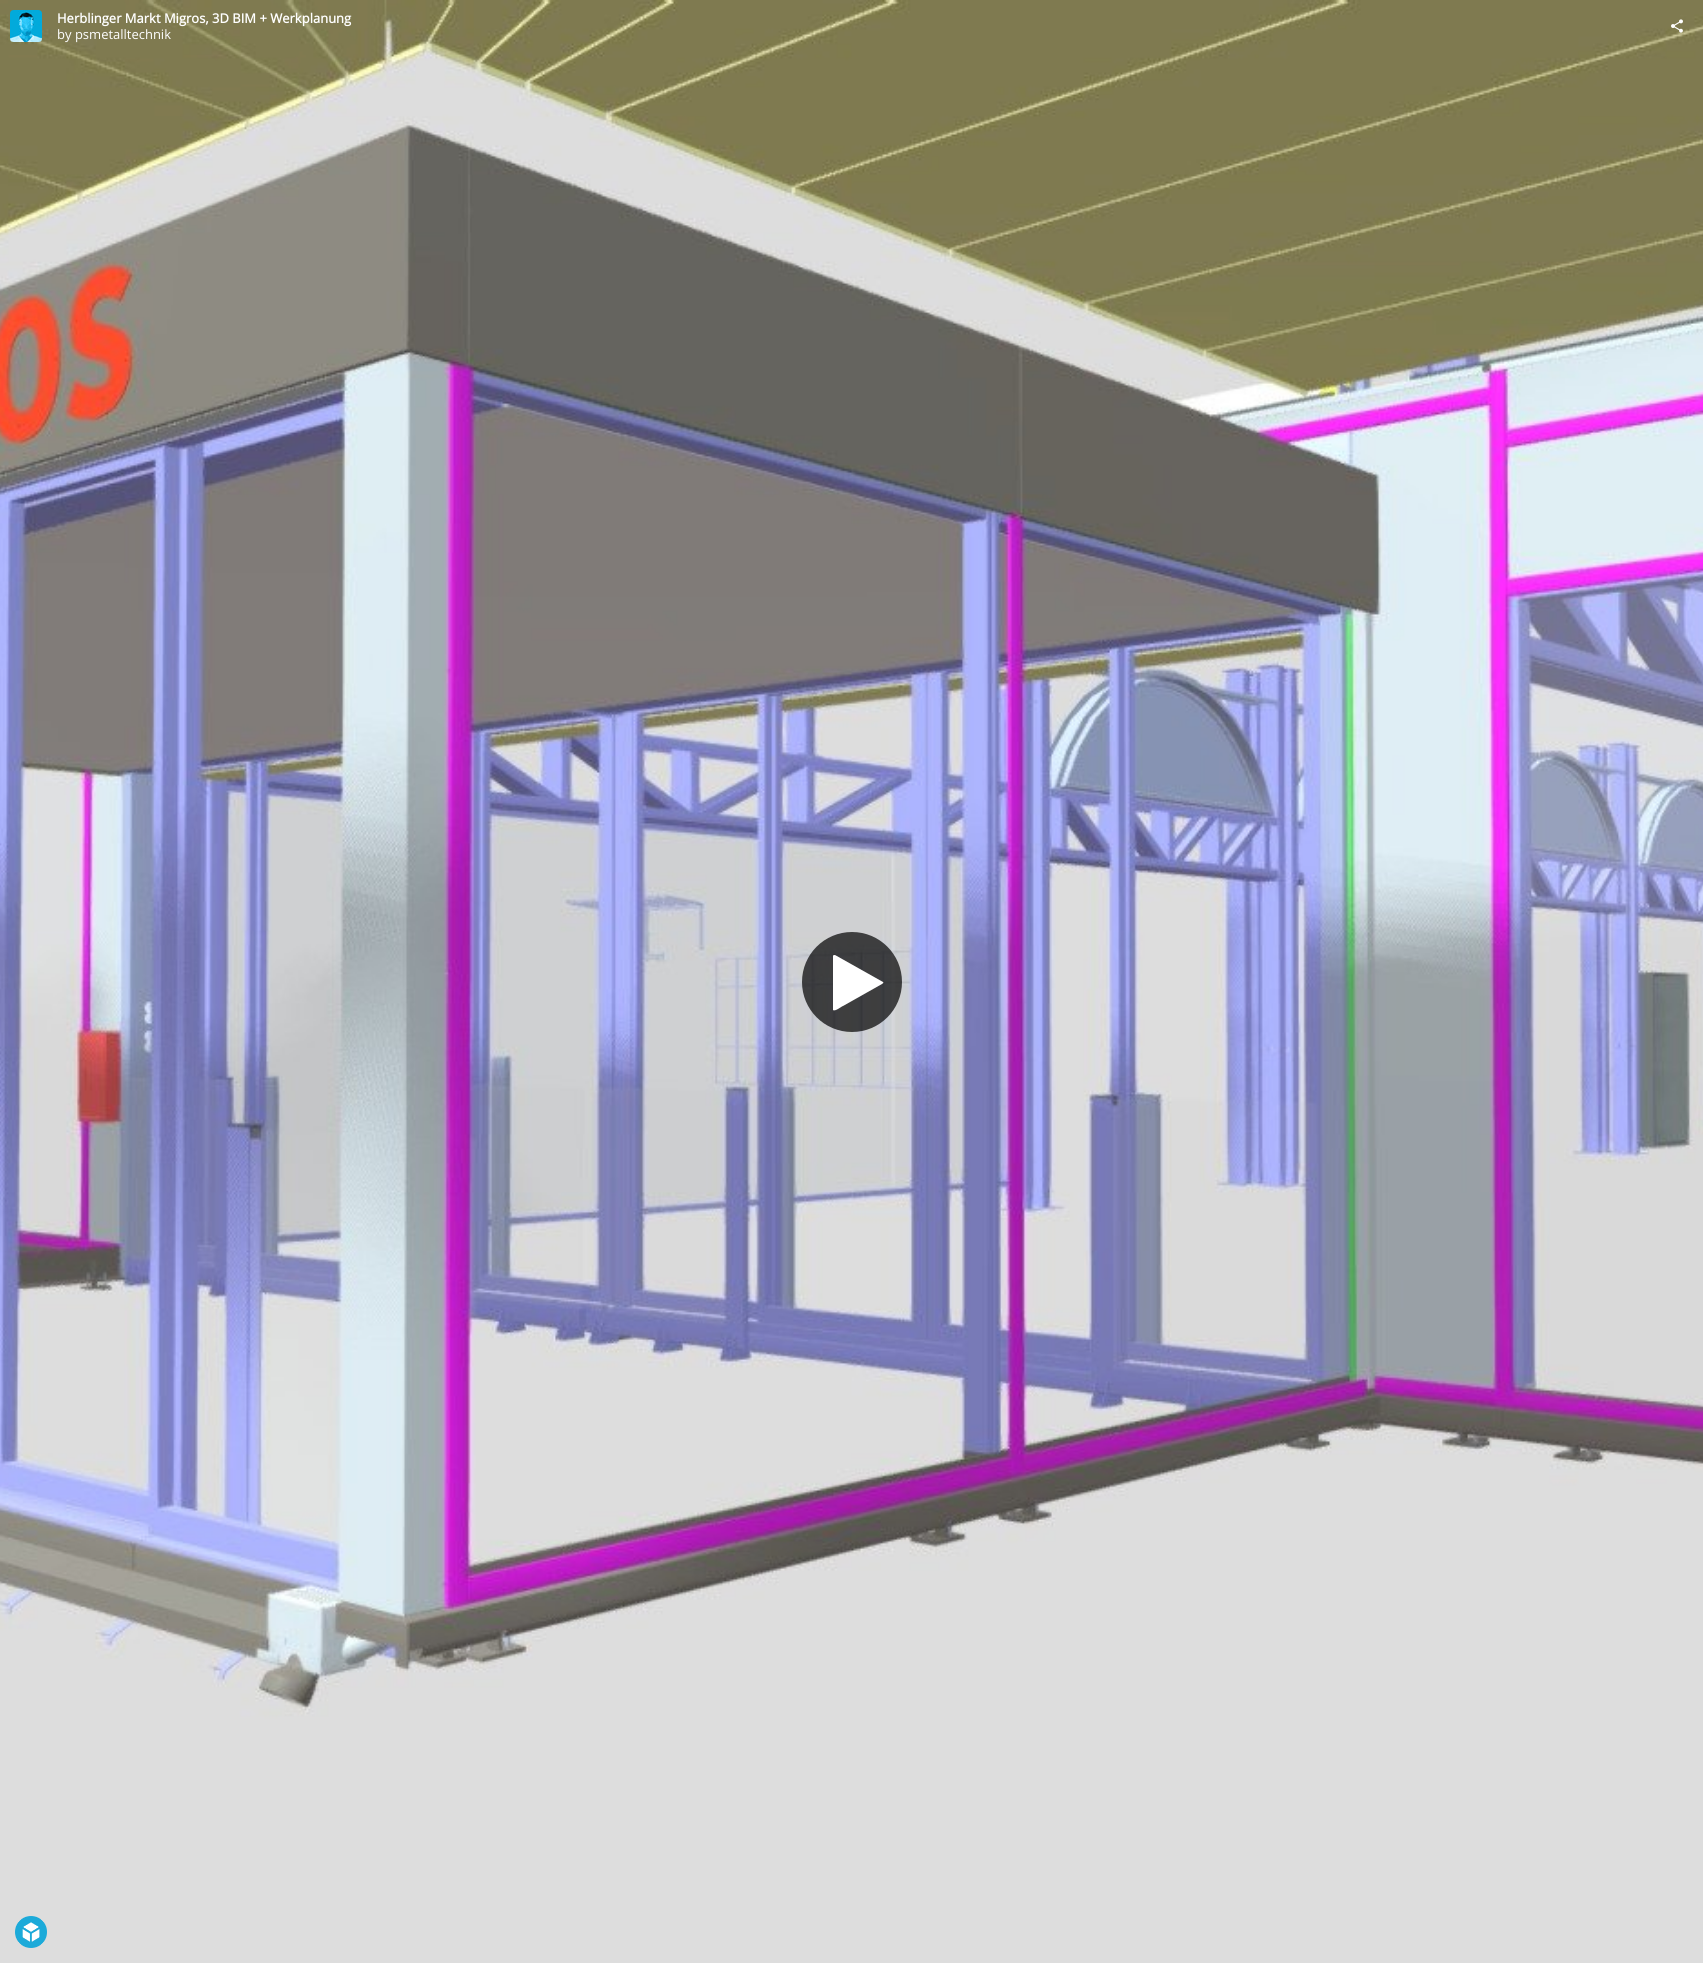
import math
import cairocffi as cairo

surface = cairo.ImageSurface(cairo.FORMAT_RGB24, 1703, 1963)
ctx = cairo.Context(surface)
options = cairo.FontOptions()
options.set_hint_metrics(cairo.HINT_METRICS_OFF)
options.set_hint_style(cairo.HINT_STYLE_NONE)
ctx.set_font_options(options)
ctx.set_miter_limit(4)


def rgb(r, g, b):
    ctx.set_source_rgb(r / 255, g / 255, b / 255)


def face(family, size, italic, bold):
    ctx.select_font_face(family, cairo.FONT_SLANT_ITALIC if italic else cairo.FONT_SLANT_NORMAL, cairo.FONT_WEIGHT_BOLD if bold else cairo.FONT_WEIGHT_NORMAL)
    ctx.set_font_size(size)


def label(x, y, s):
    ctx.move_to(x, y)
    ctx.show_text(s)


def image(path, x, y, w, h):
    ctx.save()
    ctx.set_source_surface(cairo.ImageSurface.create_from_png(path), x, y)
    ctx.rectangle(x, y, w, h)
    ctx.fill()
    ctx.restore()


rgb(255, 255, 255)
ctx.paint()
image('image0.png', 0, 0, 1703, 1963)
ctx.set_source_rgba(0, 0, 0, 0.7)
ctx.arc(852, 982, 50, 0, 2 * math.pi)
ctx.fill()
rgb(255, 255, 255)
ctx.new_path()
ctx.move_to(882, 984)
ctx.line_to(843, 1006)
ctx.curve_to(842, 1006, 835, 1012, 833, 1010)
ctx.line_to(833, 956)
ctx.curve_to(833, 955, 834, 955, 835, 955)
ctx.line_to(883, 982)
ctx.curve_to(884, 983, 883, 983, 882, 984)
ctx.close_path()
ctx.fill()
image('image1.png', 15, 1916, 32, 32)
image('image2.png', 10, 10, 32, 32)
face('Open Sans', 13, 0, 1)
label(57, 23, 'Herblinger Markt Migros, 3D BIM + Werkplanung')
face('Open Sans', 13, 0, 0)
label(57, 39, 'by psmetalltechnik')
image('image3.png', 1671, 19, 12, 14)
surface.write_to_png('render.png')
